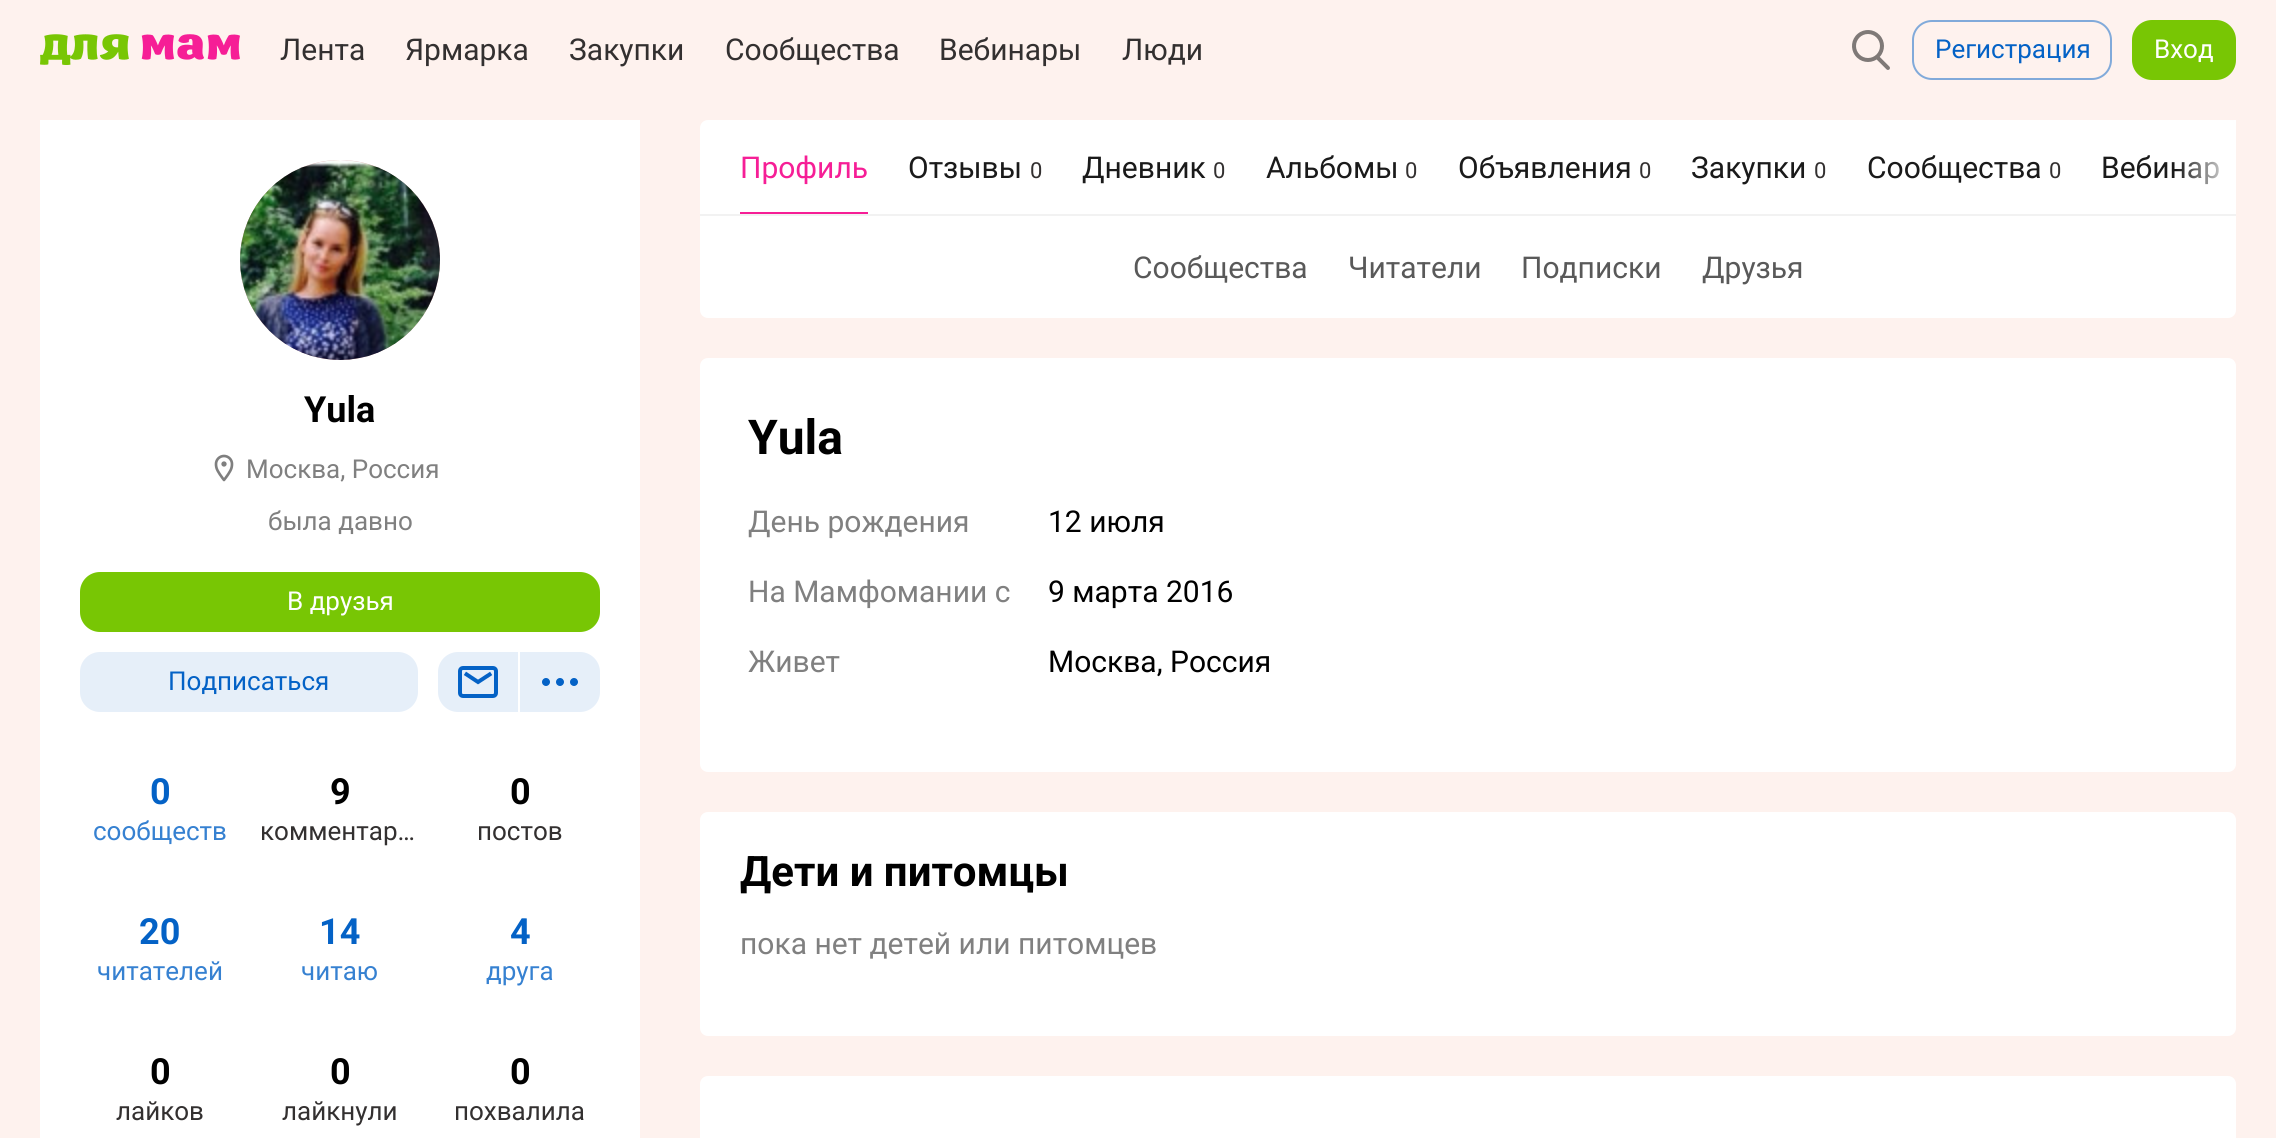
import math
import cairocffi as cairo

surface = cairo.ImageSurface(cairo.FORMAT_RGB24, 2276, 1138)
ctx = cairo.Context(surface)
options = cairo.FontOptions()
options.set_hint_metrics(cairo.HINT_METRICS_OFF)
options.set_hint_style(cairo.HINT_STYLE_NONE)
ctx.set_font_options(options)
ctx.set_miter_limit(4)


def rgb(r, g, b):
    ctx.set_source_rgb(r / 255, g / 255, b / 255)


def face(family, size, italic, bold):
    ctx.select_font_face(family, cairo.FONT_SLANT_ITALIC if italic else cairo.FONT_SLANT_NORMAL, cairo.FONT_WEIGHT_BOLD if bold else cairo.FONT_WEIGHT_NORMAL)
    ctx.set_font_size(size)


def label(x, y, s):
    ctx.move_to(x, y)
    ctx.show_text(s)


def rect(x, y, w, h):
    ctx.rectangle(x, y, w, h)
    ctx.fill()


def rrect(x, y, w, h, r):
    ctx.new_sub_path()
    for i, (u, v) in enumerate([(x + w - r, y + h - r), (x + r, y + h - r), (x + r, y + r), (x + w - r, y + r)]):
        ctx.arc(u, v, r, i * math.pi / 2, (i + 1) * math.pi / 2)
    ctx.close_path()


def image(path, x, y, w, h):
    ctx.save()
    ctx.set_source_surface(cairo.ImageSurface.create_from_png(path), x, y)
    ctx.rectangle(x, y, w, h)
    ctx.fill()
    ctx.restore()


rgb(254, 242, 238)
ctx.paint()
image('image0.png', 40, 34, 200, 31)
face('Roboto', 30, 0, 0)
rgb(51, 48, 48)
label(280, 60, 'Лента')
label(405, 60, 'Ярмарка')
label(569, 60, 'Закупки')
label(725, 60, 'Сообщества')
label(939, 60, 'Вебинары')
label(1122, 60, 'Люди')
image('image1.png', 1852, 30, 38, 40)
rrect(1913, 21, 198, 58, 19)
rgb(129, 170, 218)
ctx.stroke()
face('Roboto', 26, 0, 0)
rgb(4, 98, 198)
label(1935, 58, 'Регистрация')
rgb(120, 198, 4)
rrect(2133, 21, 102, 58, 19)
ctx.fill_preserve()
ctx.stroke()
rgb(255, 255, 255)
label(2154, 58, 'Вход')
rect(40, 120, 600, 1018)
rgb(220, 177, 177)
ctx.new_path()
ctx.arc(340, 260, 100, 0, 2 * math.pi)
ctx.fill()
image('image2.png', 240, 160, 200, 200)
face('Roboto', 36, 0, 1)
rgb(0, 0, 0)
label(304, 422, 'Yula')
image('image3.png', 214, 454, 20, 28)
face('Roboto', 26, 0, 0)
rgb(128, 128, 128)
label(246, 478, 'Москва, Россия')
label(268, 530, 'была давно')
rgb(120, 198, 4)
rrect(81, 573, 518, 58, 19)
ctx.fill_preserve()
ctx.stroke()
rgb(255, 255, 255)
label(287, 610, 'В друзья')
rgb(230, 239, 249)
rrect(80, 652, 338, 60, 20)
ctx.fill()
rgb(4, 98, 198)
label(168, 690, 'Подписаться')
rgb(230, 239, 249)
ctx.new_path()
ctx.move_to(458, 652)
ctx.line_to(518, 652)
ctx.line_to(518, 712)
ctx.line_to(458, 712)
ctx.curve_to(447, 712, 438, 703, 438, 692)
ctx.line_to(438, 672)
ctx.curve_to(438, 661, 447, 652, 458, 652)
ctx.close_path()
ctx.fill()
image('image4.png', 458, 666, 40, 32)
ctx.new_path()
ctx.move_to(520, 652)
ctx.line_to(580, 652)
ctx.curve_to(591, 652, 600, 661, 600, 672)
ctx.line_to(600, 692)
ctx.curve_to(600, 703, 591, 712, 580, 712)
ctx.line_to(520, 712)
ctx.close_path()
ctx.fill()
image('image5.png', 542, 678, 36, 8)
face('Roboto', 36, 0, 1)
rgb(4, 98, 198)
label(150, 804, '0')
face('Roboto', 26, 0, 0)
rgb(54, 129, 209)
label(93, 840, 'сообществ')
face('Roboto', 36, 0, 1)
rgb(0, 0, 0)
label(330, 804, '9')
face('Roboto', 26, 0, 0)
rgb(51, 48, 48)
label(260, 840, 'комментар…')
face('Roboto', 36, 0, 1)
rgb(0, 0, 0)
label(510, 804, '0')
face('Roboto', 26, 0, 0)
rgb(51, 48, 48)
label(477, 840, 'постов')
face('Roboto', 36, 0, 1)
rgb(4, 98, 198)
label(139, 944, '20')
face('Roboto', 26, 0, 0)
rgb(54, 129, 209)
label(97, 980, 'читателей')
face('Roboto', 36, 0, 1)
rgb(4, 98, 198)
label(319, 944, '14')
face('Roboto', 26, 0, 0)
rgb(54, 129, 209)
label(301, 980, 'читаю')
face('Roboto', 36, 0, 1)
rgb(4, 98, 198)
label(510, 944, '4')
face('Roboto', 26, 0, 0)
rgb(54, 129, 209)
label(486, 980, 'друга')
face('Roboto', 36, 0, 1)
rgb(0, 0, 0)
label(150, 1084, '0')
face('Roboto', 26, 0, 0)
rgb(51, 48, 48)
label(116, 1120, 'лайков')
face('Roboto', 36, 0, 1)
rgb(0, 0, 0)
label(330, 1084, '0')
face('Roboto', 26, 0, 0)
rgb(51, 48, 48)
label(282, 1120, 'лайкнули')
face('Roboto', 36, 0, 1)
rgb(0, 0, 0)
label(510, 1084, '0')
face('Roboto', 26, 0, 0)
rgb(51, 48, 48)
label(454, 1120, 'похвалила')
rgb(255, 255, 255)
rrect(700, 120, 1536, 198, 8)
ctx.fill()
face('Roboto', 30, 0, 0)
rgb(26, 26, 26)
label(2101, 178, 'Вебинар')
gradient = cairo.LinearGradient(2176, 167, 2236, 167)
gradient.add_color_stop_rgba(0, 1, 1, 1, 0)
gradient.add_color_stop_rgba(1, 1, 1, 1, 1)
ctx.set_source(gradient)
rect(2177, 120, 59, 65)
rgb(246, 30, 150)
rect(740, 212, 128, 2)
label(740, 178, 'Профиль')
rgb(26, 26, 26)
label(908, 178, 'Отзывы')
face('Roboto', 22, 0, 0)
rgb(51, 48, 48)
label(1030, 178, '0')
face('Roboto', 30, 0, 0)
rgb(26, 26, 26)
label(1082, 178, 'Дневник')
face('Roboto', 22, 0, 0)
rgb(51, 48, 48)
label(1213, 178, '0')
face('Roboto', 30, 0, 0)
rgb(26, 26, 26)
label(1266, 178, 'Альбомы')
face('Roboto', 22, 0, 0)
rgb(51, 48, 48)
label(1405, 178, '0')
face('Roboto', 30, 0, 0)
rgb(26, 26, 26)
label(1458, 178, 'Объявления')
face('Roboto', 22, 0, 0)
rgb(51, 48, 48)
label(1639, 178, '0')
face('Roboto', 30, 0, 0)
rgb(26, 26, 26)
label(1691, 178, 'Закупки')
face('Roboto', 22, 0, 0)
rgb(51, 48, 48)
label(1814, 178, '0')
face('Roboto', 30, 0, 0)
rgb(26, 26, 26)
label(1867, 178, 'Сообщества')
face('Roboto', 22, 0, 0)
rgb(51, 48, 48)
label(2049, 178, '0')
rgb(242, 242, 242)
rect(700, 214, 1536, 2)
face('Roboto', 30, 0, 0)
rgb(89, 89, 89)
label(1133, 278, 'Сообщества')
label(1348, 278, 'Читатели')
label(1521, 278, 'Подписки')
label(1702, 278, 'Друзья')
rgb(255, 255, 255)
rrect(700, 358, 1536, 414, 8)
ctx.fill()
face('Roboto', 48, 0, 1)
rgb(0, 0, 0)
label(748, 454, 'Yula')
face('Roboto', 30, 0, 0)
rgb(128, 128, 128)
label(748, 532, 'День рождения')
rgb(0, 0, 0)
label(1048, 532, '12 июля')
rgb(128, 128, 128)
label(748, 602, 'На Мамфомании с')
rgb(0, 0, 0)
label(1048, 602, '9 марта 2016')
rgb(128, 128, 128)
label(748, 672, 'Живет')
rgb(0, 0, 0)
label(1048, 672, 'Москва, Россия')
rgb(255, 255, 255)
rrect(700, 812, 1536, 224, 8)
ctx.fill()
face('Roboto', 42, 0, 1)
rgb(0, 0, 0)
label(740, 886, 'Дети и питомцы')
face('Roboto', 30, 0, 0)
rgb(128, 128, 128)
label(740, 954, 'пока нет детей или питомцев')
rgb(255, 255, 255)
rrect(700, 1076, 1536, 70, 8)
ctx.fill()
surface.write_to_png('render.png')
